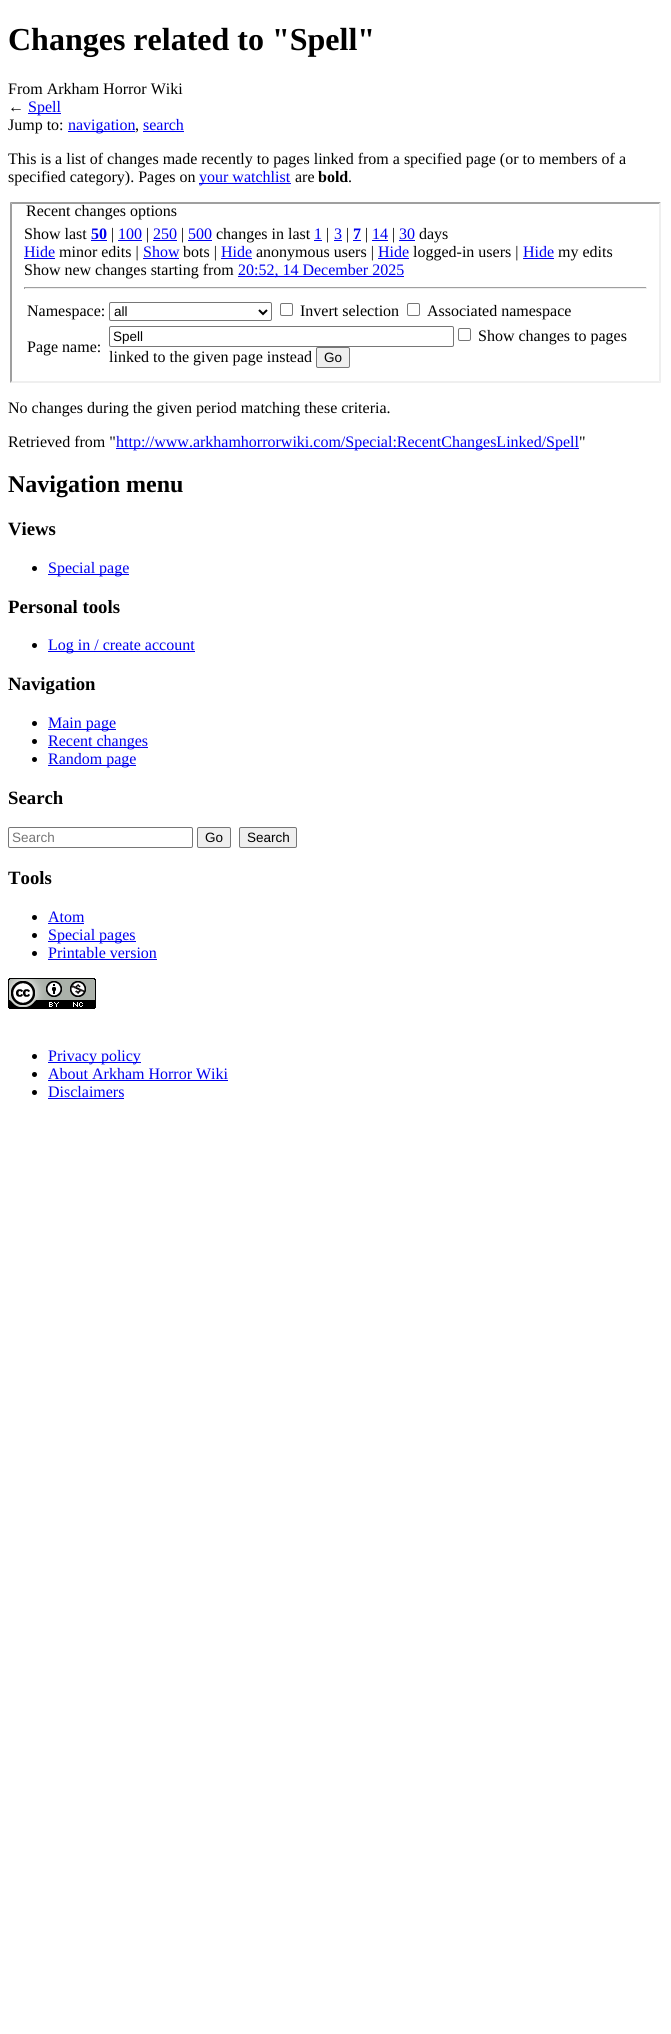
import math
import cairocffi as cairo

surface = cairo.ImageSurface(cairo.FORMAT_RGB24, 671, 2034)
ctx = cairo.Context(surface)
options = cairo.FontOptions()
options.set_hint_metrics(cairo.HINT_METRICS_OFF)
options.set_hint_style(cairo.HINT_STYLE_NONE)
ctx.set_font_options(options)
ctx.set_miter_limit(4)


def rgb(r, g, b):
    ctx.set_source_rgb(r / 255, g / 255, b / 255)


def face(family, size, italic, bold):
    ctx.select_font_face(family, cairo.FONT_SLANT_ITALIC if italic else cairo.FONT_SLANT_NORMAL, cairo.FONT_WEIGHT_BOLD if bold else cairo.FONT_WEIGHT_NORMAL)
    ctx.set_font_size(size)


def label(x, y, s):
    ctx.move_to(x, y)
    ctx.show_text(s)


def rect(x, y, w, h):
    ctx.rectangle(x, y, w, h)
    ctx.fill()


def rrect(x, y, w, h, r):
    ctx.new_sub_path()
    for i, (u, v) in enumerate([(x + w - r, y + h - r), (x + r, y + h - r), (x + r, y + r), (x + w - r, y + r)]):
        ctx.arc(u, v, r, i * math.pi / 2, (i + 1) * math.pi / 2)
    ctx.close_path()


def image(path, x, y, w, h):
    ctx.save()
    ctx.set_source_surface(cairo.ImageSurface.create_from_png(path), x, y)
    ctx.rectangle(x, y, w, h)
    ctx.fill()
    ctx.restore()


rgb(255, 255, 255)
ctx.paint()
face('Liberation Serif', 32, 0, 1)
rgb(0, 0, 0)
label(8, 50, 'Changes related to "Spell"')
face('Liberation Serif', 16, 0, 0)
label(8, 94, 'From Arkham Horror Wiki')
label(8, 112, '←')
rgb(0, 0, 238)
rect(28, 113, 33, 1)
label(28, 112, 'Spell')
rgb(0, 0, 0)
label(8, 130, 'Jump to:')
rgb(0, 0, 238)
rect(68, 131, 67, 1)
label(68, 130, 'navigation')
rgb(0, 0, 0)
label(135, 130, ',')
rgb(0, 0, 238)
label(143, 130, 'search')
rect(143, 131, 41, 1)
rgb(0, 0, 0)
label(8, 164, 'This is a list of changes made recently to pages linked from a specified page (or to members of a')
label(8, 182, 'specified category). Pages on')
rgb(0, 0, 238)
rect(199, 183, 92, 1)
label(199, 182, 'your watchlist')
rgb(0, 0, 0)
label(295, 182, 'are')
face('Liberation Serif', 16, 0, 1)
label(318, 182, 'bold')
face('Liberation Serif', 16, 0, 0)
label(348, 182, '.')
rgb(159, 159, 159)
ctx.new_path()
ctx.move_to(10, 202)
ctx.line_to(661, 202)
ctx.line_to(659, 204)
ctx.line_to(12, 204)
ctx.close_path()
ctx.fill()
rgb(239, 239, 239)
ctx.new_path()
ctx.move_to(661, 202)
ctx.line_to(661, 383)
ctx.line_to(659, 381)
ctx.line_to(659, 204)
ctx.close_path()
ctx.fill()
ctx.new_path()
ctx.move_to(661, 383)
ctx.line_to(10, 383)
ctx.line_to(12, 381)
ctx.line_to(659, 381)
ctx.close_path()
ctx.fill()
rgb(159, 159, 159)
ctx.new_path()
ctx.move_to(10, 383)
ctx.line_to(10, 202)
ctx.line_to(12, 204)
ctx.line_to(12, 381)
ctx.close_path()
ctx.fill()
rgb(0, 0, 0)
label(26, 216, 'Recent changes options')
label(24, 239, 'Show last')
face('Liberation Serif', 16, 0, 1)
rgb(0, 0, 238)
label(91, 239, '50')
rect(91, 240, 16, 1)
face('Liberation Serif', 16, 0, 0)
rgb(0, 0, 0)
label(111, 239, '|')
rgb(0, 0, 238)
label(118, 239, '100')
rect(118, 240, 24, 1)
rgb(0, 0, 0)
label(146, 239, '|')
rgb(0, 0, 238)
label(153, 239, '250')
rect(153, 240, 24, 1)
rgb(0, 0, 0)
label(181, 239, '|')
rgb(0, 0, 238)
label(188, 239, '500')
rect(188, 240, 24, 1)
rgb(0, 0, 0)
label(216, 239, 'changes in last')
rgb(0, 0, 238)
label(314, 239, '1')
rect(314, 240, 8, 1)
rgb(0, 0, 0)
label(326, 239, '|')
rgb(0, 0, 238)
label(334, 239, '3')
rect(334, 240, 8, 1)
rgb(0, 0, 0)
label(346, 239, '|')
face('Liberation Serif', 16, 0, 1)
rgb(0, 0, 238)
label(353, 239, '7')
rect(353, 240, 8, 1)
face('Liberation Serif', 16, 0, 0)
rgb(0, 0, 0)
label(365, 239, '|')
rgb(0, 0, 238)
label(372, 239, '14')
rect(372, 240, 16, 1)
rgb(0, 0, 0)
label(392, 239, '|')
rgb(0, 0, 238)
label(399, 239, '30')
rect(399, 240, 16, 1)
rgb(0, 0, 0)
label(419, 239, 'days')
rgb(0, 0, 238)
label(24, 257, 'Hide')
rect(24, 258, 31, 1)
rgb(0, 0, 0)
label(59, 257, 'minor edits |')
rgb(0, 0, 238)
label(143, 257, 'Show')
rect(143, 258, 36, 1)
rgb(0, 0, 0)
label(183, 257, 'bots |')
rgb(0, 0, 238)
label(221, 257, 'Hide')
rect(221, 258, 31, 1)
rgb(0, 0, 0)
label(256, 257, 'anonymous users |')
rgb(0, 0, 238)
label(378, 257, 'Hide')
rect(378, 258, 31, 1)
rgb(0, 0, 0)
label(413, 257, 'logged-in users |')
rgb(0, 0, 238)
label(523, 257, 'Hide')
rect(523, 258, 31, 1)
rgb(0, 0, 0)
label(558, 257, 'my edits')
label(24, 275, 'Show new changes starting from')
rgb(0, 0, 238)
rect(238, 276, 166, 1)
label(238, 275, '20:52, 14 December 2025')
rgb(159, 159, 159)
rect(24, 287, 623, 1)
rgb(238, 238, 238)
rect(646, 287, 1, 2)
rect(24, 288, 623, 1)
rgb(159, 159, 159)
rect(24, 287, 1, 2)
rgb(0, 0, 0)
label(27, 316, 'Namespace:')
rrect(109.5, 302.5, 162, 18, 1.5)
rgb(118, 118, 118)
ctx.set_line_width(1)
ctx.stroke()
ctx.new_path()
ctx.move_to(259, 310)
ctx.line_to(263, 314)
ctx.line_to(267, 310)
rgb(0, 0, 0)
ctx.set_line_width(2)
ctx.stroke()
face('Liberation Sans', 13.5, 0, 0)
label(114, 316, 'all')
rrect(280.5, 303.5, 12, 12, 1.5)
rgb(118, 118, 118)
ctx.set_line_width(1)
ctx.stroke()
face('Liberation Serif', 16, 0, 0)
rgb(0, 0, 0)
label(300, 316, 'Invert selection')
rrect(407.5, 303.5, 12, 12, 1.5)
rgb(118, 118, 118)
ctx.stroke()
rgb(0, 0, 0)
label(427, 316, 'Associated namespace')
label(27, 352, 'Page name:')
rrect(109.5, 326.5, 344, 20, 1.5)
rgb(118, 118, 118)
ctx.stroke()
face('Liberation Sans', 13.5, 0, 0)
rgb(0, 0, 0)
label(113, 341, 'Spell')
rrect(458.5, 328.5, 12, 12, 1.5)
rgb(118, 118, 118)
ctx.stroke()
face('Liberation Serif', 16, 0, 0)
rgb(0, 0, 0)
label(478, 341, 'Show changes to pages')
label(109, 362, 'linked to the given page instead')
rgb(239, 239, 239)
rrect(316.5, 347.5, 33, 20, 1.5)
ctx.fill_preserve()
rgb(118, 118, 118)
ctx.stroke()
face('Liberation Sans', 13.5, 0, 0)
rgb(0, 0, 0)
label(324, 362, 'Go')
face('Liberation Serif', 16, 0, 0)
label(8, 413, 'No changes during the given period matching these criteria.')
label(8, 447, 'Retrieved from "')
rgb(0, 0, 238)
rect(116, 448, 463, 1)
label(116, 447, 'http://www.arkhamhorrorwiki.com/Special:RecentChangesLinked/Spell')
rgb(0, 0, 0)
label(579, 447, '"')
face('Liberation Serif', 24, 0, 1)
label(8, 492, 'Navigation menu')
face('Liberation Serif', 18.75, 0, 1)
label(8, 535, 'Views')
ctx.new_path()
ctx.arc(34.5, 568.5, 2.5, 0, 2 * math.pi)
ctx.fill()
rgb(0, 0, 238)
rect(48, 574, 81, 1)
face('Liberation Serif', 16, 0, 0)
label(48, 573, 'Special page')
face('Liberation Serif', 18.75, 0, 1)
rgb(0, 0, 0)
label(8, 613, 'Personal tools')
ctx.new_path()
ctx.arc(34.5, 645.5, 2.5, 0, 2 * math.pi)
ctx.fill()
rgb(0, 0, 238)
rect(48, 651, 147, 1)
face('Liberation Serif', 16, 0, 0)
label(48, 650, 'Log in / create account')
face('Liberation Serif', 18.75, 0, 1)
rgb(0, 0, 0)
label(8, 690, 'Navigation')
ctx.new_path()
ctx.arc(34.5, 723.5, 2.5, 0, 2 * math.pi)
ctx.fill()
rgb(0, 0, 238)
rect(48, 729, 68, 1)
face('Liberation Serif', 16, 0, 0)
label(48, 728, 'Main page')
rgb(0, 0, 0)
ctx.new_path()
ctx.arc(34.5, 741.5, 2.5, 0, 2 * math.pi)
ctx.fill()
rgb(0, 0, 238)
rect(48, 747, 100, 1)
label(48, 746, 'Recent changes')
rgb(0, 0, 0)
ctx.new_path()
ctx.arc(34.5, 759.5, 2.5, 0, 2 * math.pi)
ctx.fill()
rgb(0, 0, 238)
rect(48, 765, 88, 1)
label(48, 764, 'Random page')
face('Liberation Serif', 18.75, 0, 1)
rgb(0, 0, 0)
label(8, 804, 'Search')
rrect(8.5, 827.5, 184, 20, 1.5)
rgb(118, 118, 118)
ctx.stroke()
face('Liberation Sans', 13.5, 0, 0)
rgb(117, 117, 117)
label(12, 842, 'Search')
rgb(239, 239, 239)
rrect(197.5, 827.5, 33, 20, 1.5)
ctx.fill_preserve()
rgb(118, 118, 118)
ctx.stroke()
rgb(0, 0, 0)
label(205, 842, 'Go')
rgb(239, 239, 239)
rrect(239.5, 827.5, 57, 20, 1.5)
ctx.fill_preserve()
rgb(118, 118, 118)
ctx.stroke()
rgb(0, 0, 0)
label(247, 842, 'Search')
face('Liberation Serif', 18.75, 0, 1)
label(8, 884, 'Tools')
ctx.new_path()
ctx.arc(34.5, 917.5, 2.5, 0, 2 * math.pi)
ctx.fill()
face('Liberation Serif', 16, 0, 0)
rgb(0, 0, 238)
label(48, 922, 'Atom')
rect(48, 923, 36, 1)
rgb(0, 0, 0)
ctx.new_path()
ctx.arc(34.5, 935.5, 2.5, 0, 2 * math.pi)
ctx.fill()
rgb(0, 0, 238)
rect(48, 941, 88, 1)
label(48, 940, 'Special pages')
rgb(0, 0, 0)
ctx.new_path()
ctx.arc(34.5, 953.5, 2.5, 0, 2 * math.pi)
ctx.fill()
rgb(0, 0, 238)
label(48, 958, 'Printable version')
rect(48, 959, 109, 1)
image('image0.png', 8, 978, 88, 31)
rgb(0, 0, 0)
ctx.arc(34.5, 1056.5, 2.5, 0, 2 * math.pi)
ctx.fill()
rgb(0, 0, 238)
rect(48, 1062, 93, 1)
label(48, 1061, 'Privacy policy')
rgb(0, 0, 0)
ctx.new_path()
ctx.arc(34.5, 1074.5, 2.5, 0, 2 * math.pi)
ctx.fill()
rgb(0, 0, 238)
label(48, 1079, 'About Arkham Horror Wiki')
rect(48, 1080, 180, 1)
rgb(0, 0, 0)
ctx.new_path()
ctx.arc(34.5, 1092.5, 2.5, 0, 2 * math.pi)
ctx.fill()
rgb(0, 0, 238)
label(48, 1097, 'Disclaimers')
rect(48, 1098, 76, 1)
surface.write_to_png('render.png')
